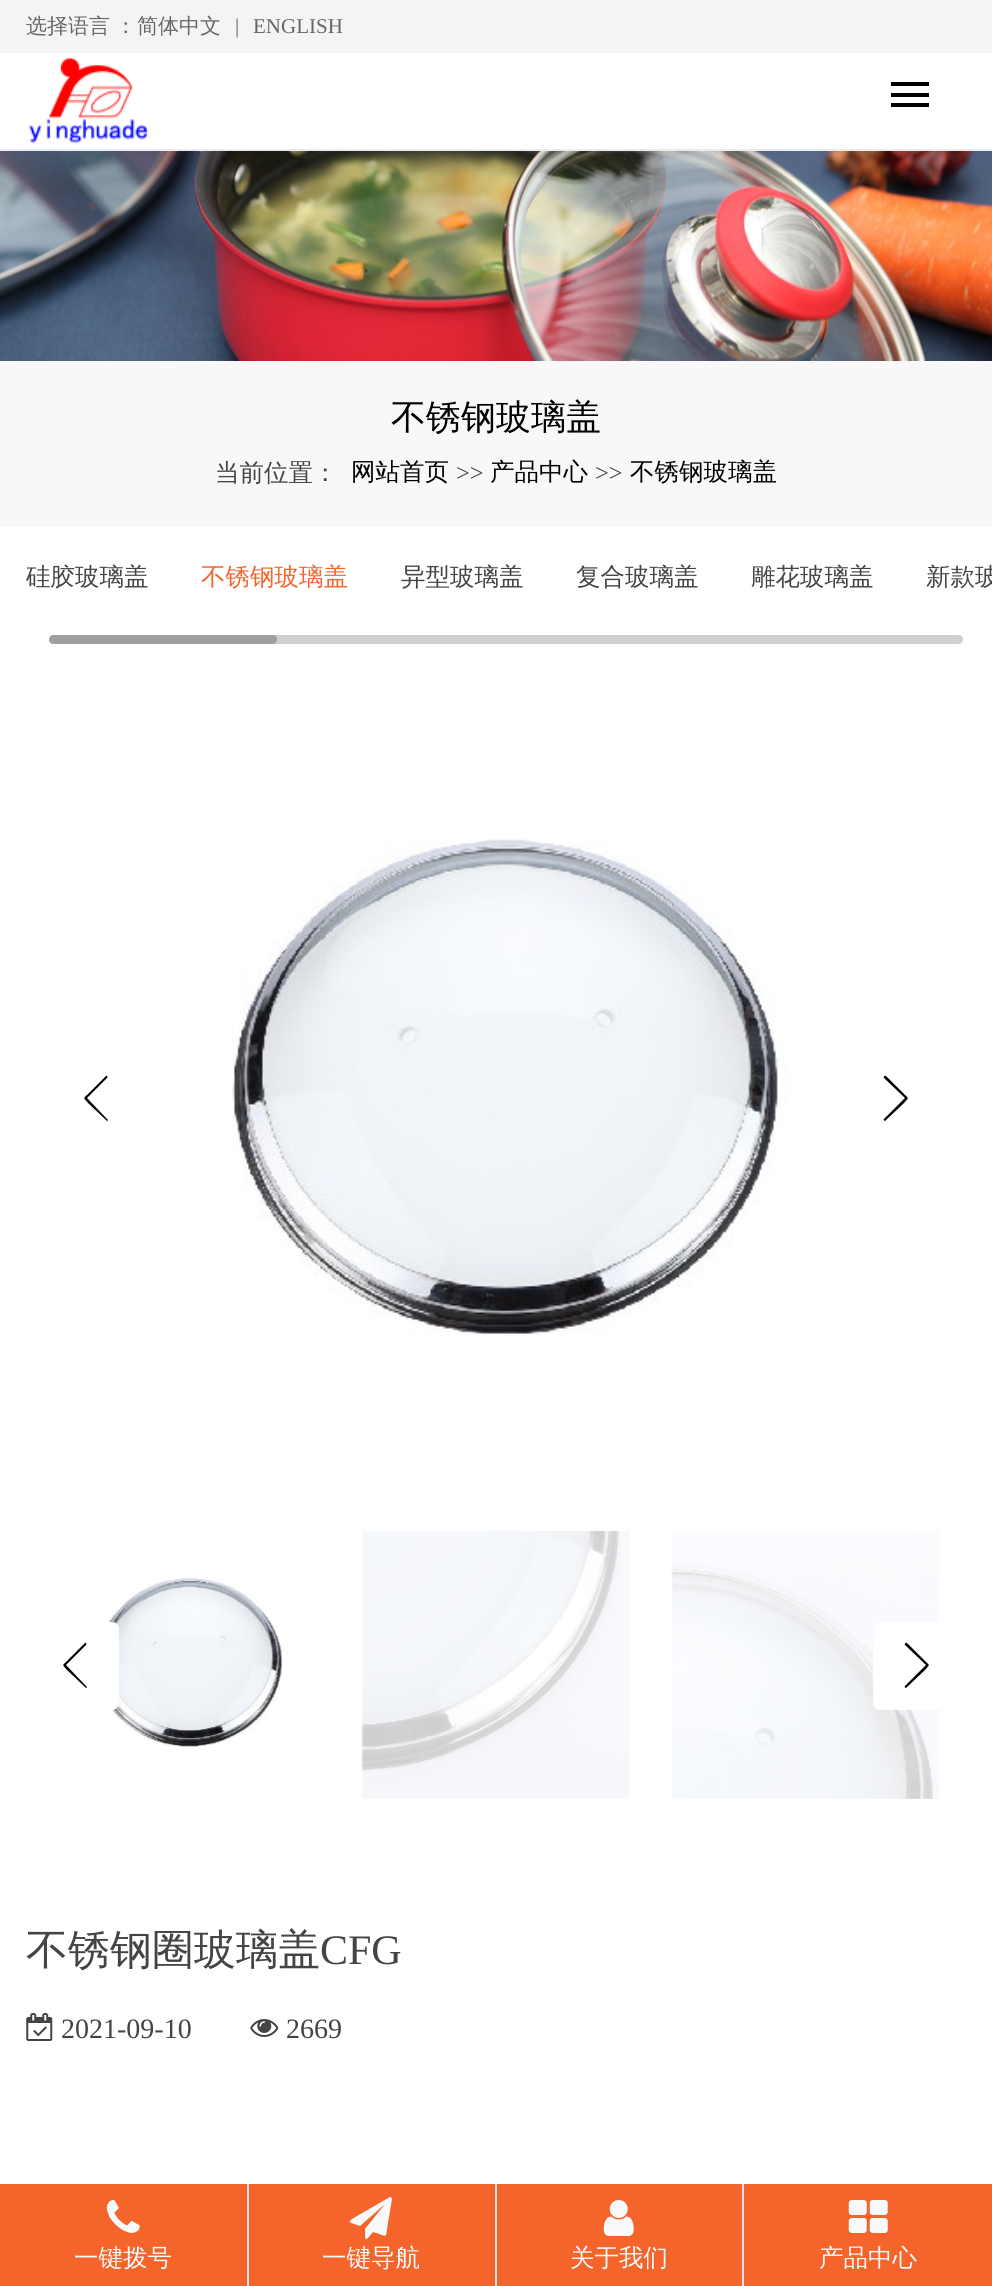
import math
import cairocffi as cairo

surface = cairo.ImageSurface(cairo.FORMAT_RGB24, 992, 2286)
ctx = cairo.Context(surface)
options = cairo.FontOptions()
options.set_hint_metrics(cairo.HINT_METRICS_OFF)
options.set_hint_style(cairo.HINT_STYLE_NONE)
ctx.set_font_options(options)
ctx.set_miter_limit(4)


def rgb(r, g, b):
    ctx.set_source_rgb(r / 255, g / 255, b / 255)


def face(family, size, italic, bold):
    ctx.select_font_face(family, cairo.FONT_SLANT_ITALIC if italic else cairo.FONT_SLANT_NORMAL, cairo.FONT_WEIGHT_BOLD if bold else cairo.FONT_WEIGHT_NORMAL)
    ctx.set_font_size(size)


def label(x, y, s):
    ctx.move_to(x, y)
    ctx.show_text(s)


def tracked(x, y, s, letter, word):
    ctx.move_to(x, y)
    for ch in s:
        ctx.show_text(ch)
        ctx.rel_move_to(letter + word * (ch == ' '), 0)


def rect(x, y, w, h):
    ctx.rectangle(x, y, w, h)
    ctx.fill()


def rrect(x, y, w, h, r):
    ctx.new_sub_path()
    for i, (u, v) in enumerate([(x + w - r, y + h - r), (x + r, y + h - r), (x + r, y + r), (x + w - r, y + r)]):
        ctx.arc(u, v, r, i * math.pi / 2, (i + 1) * math.pi / 2)
    ctx.close_path()


def image(path, x, y, w, h):
    ctx.save()
    ctx.set_source_surface(cairo.ImageSurface.create_from_png(path), x, y)
    ctx.rectangle(x, y, w, h)
    ctx.fill()
    ctx.restore()


rgb(255, 255, 255)
ctx.paint()
rgb(244, 244, 244)
rect(0, 0, 992, 53)
face('WenQuanYi Zen Hei Medium', 21, 0, 0)
rgb(102, 102, 102)
tracked(26, 33, '选择语言 ：', 0, -1)
label(137, 33, '简体中文')
face('Liberation Serif', 21, 0, 0)
label(235, 33, '|')
label(253, 33, 'ENGLISH')
rgb(236, 236, 238)
rect(0, 149, 992, 2)
image('image0.png', 28, 58, 121, 86)
rgb(0, 0, 0)
rect(891, 93, 38, 4)
rect(891, 82, 38, 4)
rect(891, 103, 38, 4)
image('image1.png', 0, 151, 992, 210)
rgb(248, 248, 248)
rect(0, 361, 992, 166)
face('WenQuanYi Zen Hei Medium', 35, 0, 0)
rgb(0, 0, 0)
label(391, 429, '不锈钢玻璃盖')
face('WenQuanYi Zen Hei Medium', 24.5, 0, 0)
rgb(68, 68, 68)
label(215, 481, '当前位置：')
rgb(0, 0, 0)
label(351, 480, '网站首页')
face('Liberation Serif', 24.5, 0, 0)
rgb(68, 68, 68)
label(456, 481, '>>')
face('WenQuanYi Zen Hei Medium', 24.5, 0, 0)
rgb(0, 0, 0)
label(490, 480, '产品中心')
face('Liberation Serif', 24.5, 0, 0)
rgb(68, 68, 68)
label(595, 481, '>>')
face('WenQuanYi Zen Hei Medium', 24.5, 0, 0)
rgb(0, 0, 0)
label(630, 480, '不锈钢玻璃盖')
rgb(68, 68, 68)
label(26, 585, '硅胶玻璃盖')
rgb(244, 100, 43)
label(201, 585, '不锈钢玻璃盖')
rgb(68, 68, 68)
label(401, 585, '异型玻璃盖')
label(576, 585, '复合玻璃盖')
label(751, 585, '雕花玻璃盖')
label(926, 585, '新款玻')
rgb(230, 230, 230)
rrect(49, 635, 914, 9, 4.5)
ctx.fill()
ctx.set_source_rgba(0, 0, 0, 0.1)
rrect(49, 635, 914, 9, 4.5)
ctx.fill()
rgb(159, 159, 159)
rrect(49, 635, 228, 9, 4.5)
ctx.fill()
rgb(0, 0, 0)
ctx.new_path()
ctx.move_to(107, 1121)
ctx.curve_to(108, 1121, 108, 1119, 107, 1119)
ctx.line_to(87, 1098)
ctx.line_to(107, 1078)
ctx.curve_to(108, 1077, 107, 1075, 106, 1076)
ctx.line_to(88, 1094)
ctx.curve_to(83, 1099, 83, 1097, 88, 1103)
ctx.close_path()
ctx.fill()
image('image2.png', 232, 839, 557, 499)
ctx.new_path()
ctx.move_to(885, 1121)
ctx.curve_to(884, 1121, 883, 1119, 884, 1119)
ctx.line_to(905, 1098)
ctx.line_to(884, 1078)
ctx.curve_to(883, 1077, 885, 1075, 886, 1076)
ctx.line_to(904, 1094)
ctx.curve_to(909, 1099, 909, 1097, 904, 1103)
ctx.close_path()
ctx.fill()
image('image3.png', 96, 1578, 187, 169)
rgb(255, 255, 255)
ctx.new_path()
ctx.move_to(32, 1622)
ctx.line_to(112, 1622)
ctx.curve_to(116, 1622, 119, 1625, 119, 1629)
ctx.line_to(119, 1703)
ctx.curve_to(119, 1707, 116, 1710, 112, 1710)
ctx.line_to(32, 1710)
ctx.close_path()
ctx.fill()
rgb(0, 0, 0)
ctx.new_path()
ctx.move_to(86, 1688)
ctx.curve_to(87, 1688, 87, 1686, 86, 1686)
ctx.line_to(66, 1665)
ctx.line_to(86, 1645)
ctx.curve_to(87, 1644, 86, 1642, 85, 1643)
ctx.line_to(67, 1661)
ctx.curve_to(62, 1666, 62, 1664, 67, 1670)
ctx.close_path()
ctx.fill()
image('image4.png', 361, 1531, 269, 268)
image('image5.png', 671, 1531, 269, 268)
rgb(255, 255, 255)
ctx.new_path()
ctx.move_to(880, 1622)
ctx.line_to(961, 1622)
ctx.line_to(961, 1710)
ctx.line_to(880, 1710)
ctx.curve_to(876, 1710, 873, 1707, 873, 1703)
ctx.line_to(873, 1629)
ctx.curve_to(873, 1625, 876, 1622, 880, 1622)
ctx.close_path()
ctx.fill()
rgb(0, 0, 0)
ctx.new_path()
ctx.move_to(906, 1688)
ctx.curve_to(905, 1688, 904, 1686, 905, 1686)
ctx.line_to(926, 1665)
ctx.line_to(905, 1645)
ctx.curve_to(904, 1644, 906, 1642, 907, 1643)
ctx.line_to(925, 1661)
ctx.curve_to(930, 1666, 930, 1664, 925, 1670)
ctx.close_path()
ctx.fill()
face('WenQuanYi Zen Hei Medium', 42, 0, 0)
rgb(68, 68, 68)
label(26, 1964, '不锈钢圈玻璃盖')
face('Liberation Serif', 42, 0, 0)
label(320, 1964, 'CFG')
image('image6.png', 26, 2013, 27, 28)
face('Liberation Serif', 28, 0, 0)
label(61, 2038, '2021-09-10')
image('image7.png', 250, 2019, 29, 18)
label(286, 2038, '2669')
rgb(244, 100, 43)
rect(0, 2184, 992, 102)
rgb(222, 226, 230)
rect(247, 2184, 2, 102)
image('image8.png', 106, 2200, 34, 33)
face('WenQuanYi Zen Hei Medium', 24.5, 0, 0)
rgb(248, 249, 250)
label(74, 2266, '一键拨号')
rgb(222, 226, 230)
rect(495, 2184, 2, 102)
rgb(248, 249, 250)
ctx.new_path()
ctx.move_to(391, 2197)
ctx.line_to(392, 2199)
ctx.line_to(387, 2229)
ctx.curve_to(386, 2235, 387, 2237, 382, 2235)
ctx.line_to(373, 2232)
ctx.curve_to(365, 2242, 365, 2242, 365, 2229)
ctx.line_to(385, 2204)
ctx.line_to(360, 2226)
ctx.curve_to(349, 2222, 345, 2223, 357, 2216)
ctx.line_to(390, 2197)
ctx.close_path()
ctx.fill()
label(322, 2266, '一键导航')
rgb(222, 226, 230)
rect(742, 2184, 2, 102)
image('image9.png', 603, 2200, 31, 36)
rgb(248, 249, 250)
label(570, 2266, '关于我们')
image('image10.png', 848, 2200, 40, 33)
label(819, 2266, '产品中心')
surface.write_to_png('render.png')
